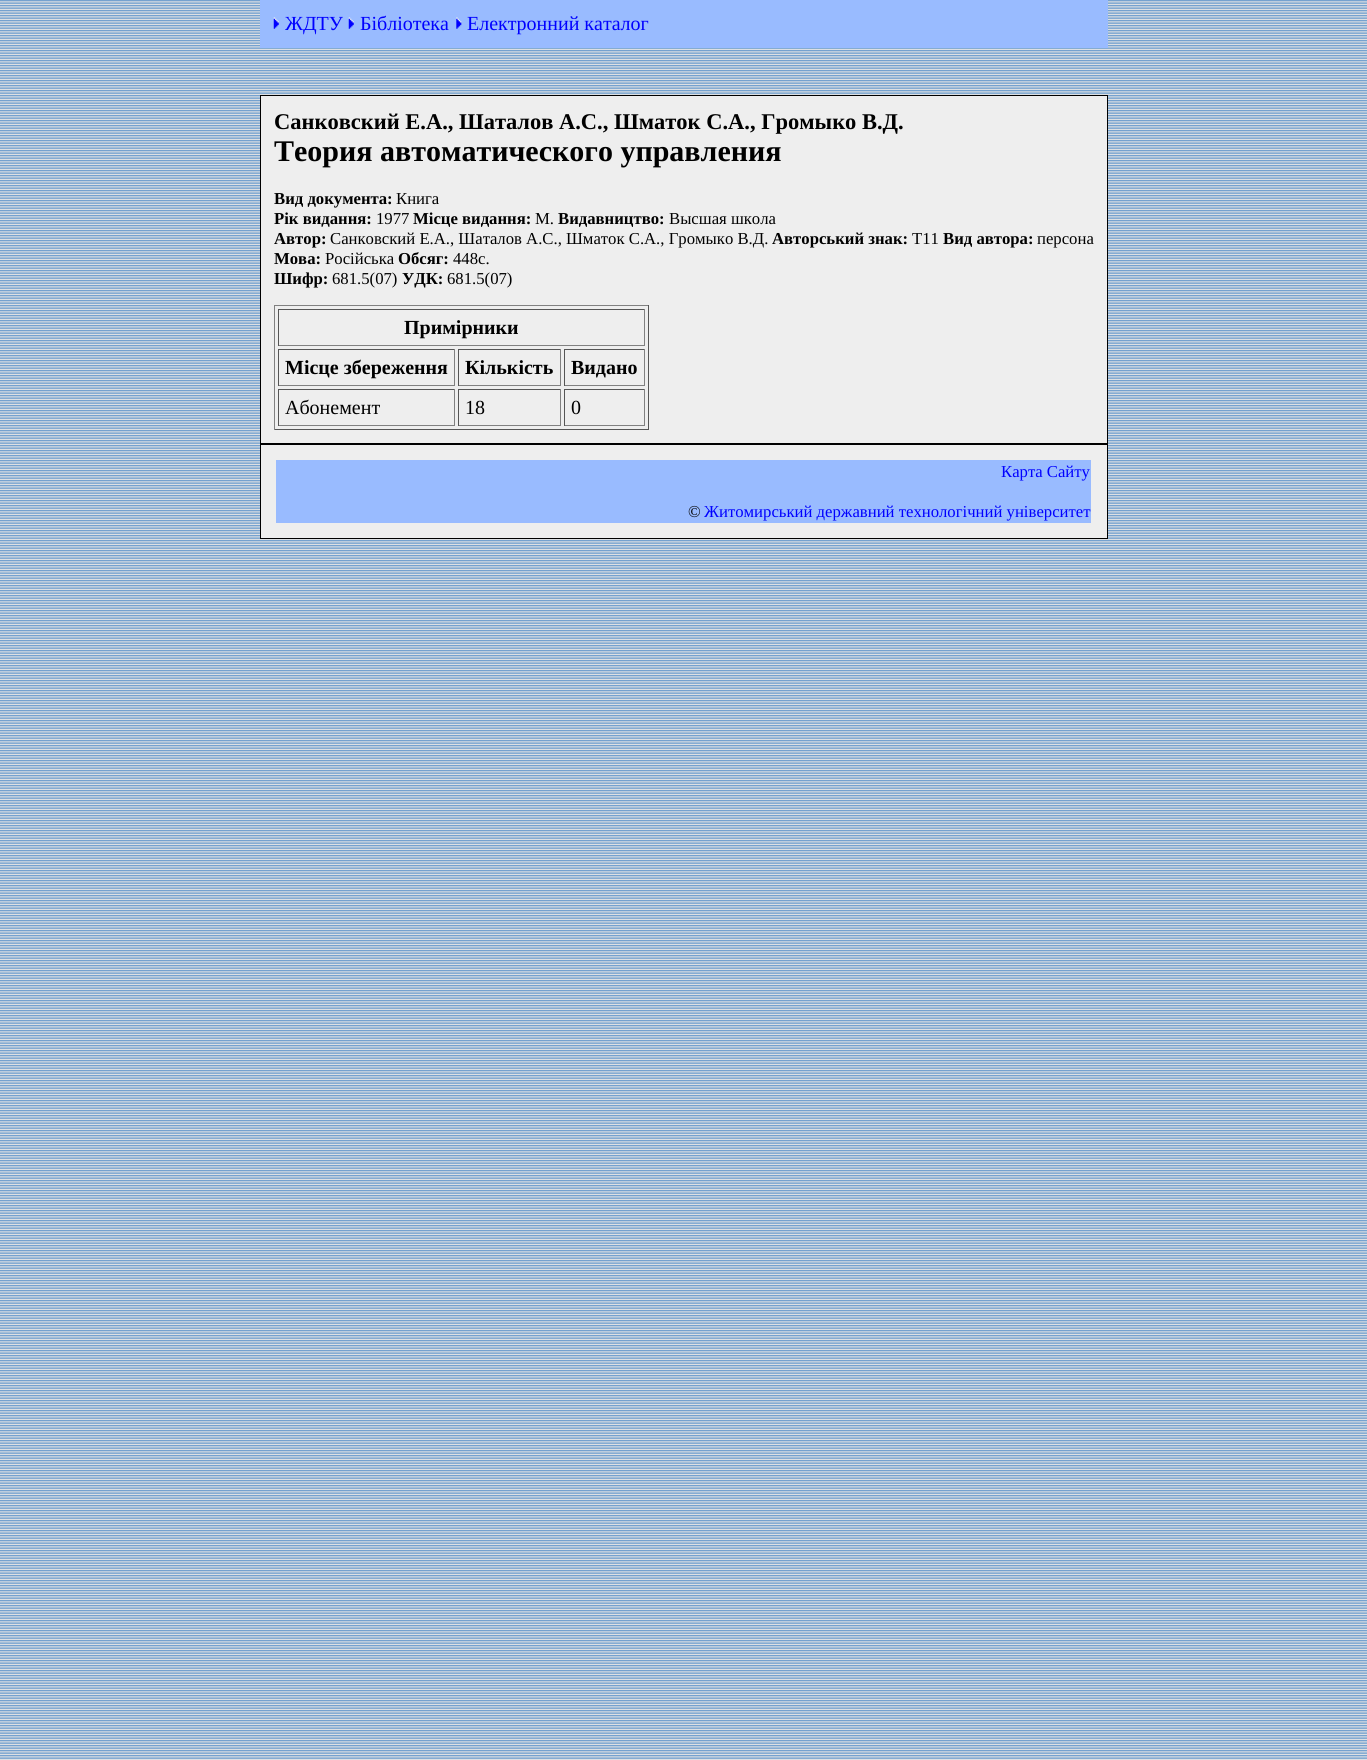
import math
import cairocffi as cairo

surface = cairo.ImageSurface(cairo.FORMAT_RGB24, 1367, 1760)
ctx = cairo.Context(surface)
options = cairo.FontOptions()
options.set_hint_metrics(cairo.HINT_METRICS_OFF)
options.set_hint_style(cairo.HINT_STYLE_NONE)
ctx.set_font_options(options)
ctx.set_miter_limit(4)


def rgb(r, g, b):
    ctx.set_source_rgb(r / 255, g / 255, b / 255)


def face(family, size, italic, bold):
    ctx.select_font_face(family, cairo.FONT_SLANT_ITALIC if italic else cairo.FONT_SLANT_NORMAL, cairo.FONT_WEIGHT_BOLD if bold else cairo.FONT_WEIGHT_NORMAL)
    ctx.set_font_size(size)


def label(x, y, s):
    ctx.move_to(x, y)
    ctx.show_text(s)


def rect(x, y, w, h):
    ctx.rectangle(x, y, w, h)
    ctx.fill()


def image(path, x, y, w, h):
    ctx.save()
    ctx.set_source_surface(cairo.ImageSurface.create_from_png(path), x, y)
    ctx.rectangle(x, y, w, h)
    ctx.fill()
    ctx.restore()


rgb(255, 255, 255)
ctx.paint()
image('image0.png', 0, 0, 1367, 1760)
rgb(153, 187, 255)
rect(260, 0, 848, 48)
image('image1.png', 273, 17, 6, 12)
face('Liberation Serif', 20, 0, 0)
rgb(0, 0, 255)
label(285, 30, 'ЖДТУ')
image('image2.png', 348, 17, 6, 12)
label(360, 30, 'Бібліотека')
image('image3.png', 456, 17, 6, 12)
label(467, 30, 'Електронний каталог')
rgb(238, 238, 238)
ctx.rectangle(260.5, 95.5, 847, 348)
ctx.fill_preserve()
rgb(0, 0, 0)
ctx.set_line_width(1)
ctx.stroke()
face('Liberation Serif', 22.5, 0, 1)
label(274, 129, 'Санковский Е.А., Шаталов А.С., Шматок С.А., Громыко В.Д.')
face('Liberation Serif', 30, 0, 1)
label(274, 161, 'Теория автоматического управления')
face('Liberation Serif', 16.7, 0, 1)
label(274, 204, 'Вид документа:')
face('Liberation Serif', 16.7, 0, 0)
label(396, 204, 'Книга')
face('Liberation Serif', 16.7, 0, 1)
label(274, 224, 'Рiк видання:')
face('Liberation Serif', 16.7, 0, 0)
label(376, 224, '1977')
face('Liberation Serif', 16.7, 0, 1)
label(413, 224, 'Мiсце видання:')
face('Liberation Serif', 16.7, 0, 0)
label(535, 224, 'М.')
face('Liberation Serif', 16.7, 0, 1)
label(558, 224, 'Видавництво:')
face('Liberation Serif', 16.7, 0, 0)
label(669, 224, 'Высшая школа')
face('Liberation Serif', 16.7, 0, 1)
label(274, 244, 'Автор:')
face('Liberation Serif', 16.7, 0, 0)
label(330, 244, 'Санковский Е.А., Шаталов А.С., Шматок С.А., Громыко В.Д.')
face('Liberation Serif', 16.7, 0, 1)
label(772, 244, 'Авторський знак:')
face('Liberation Serif', 16.7, 0, 0)
label(912, 244, 'Т11')
face('Liberation Serif', 16.7, 0, 1)
label(943, 244, 'Вид автора:')
face('Liberation Serif', 16.7, 0, 0)
label(1037, 244, 'персона')
face('Liberation Serif', 16.7, 0, 1)
label(274, 264, 'Мова:')
face('Liberation Serif', 16.7, 0, 0)
label(325, 264, 'Російська')
face('Liberation Serif', 16.7, 0, 1)
label(398, 264, 'Обсяг:')
face('Liberation Serif', 16.7, 0, 0)
label(453, 264, '448с.')
face('Liberation Serif', 16.7, 0, 1)
label(274, 284, 'Шифр:')
face('Liberation Serif', 16.7, 0, 0)
label(332, 284, '681.5(07)')
face('Liberation Serif', 16.7, 0, 1)
label(402, 284, 'УДК:')
face('Liberation Serif', 16.7, 0, 0)
label(447, 284, '681.5(07)')
rgb(128, 128, 128)
rect(274, 305, 375, 1)
rgb(85, 85, 85)
rect(648, 305, 1, 125)
rect(274, 429, 375, 1)
rgb(128, 128, 128)
rect(274, 305, 1, 125)
rgb(85, 85, 85)
rect(278, 309, 367, 1)
rgb(128, 128, 128)
rect(644, 309, 1, 37)
rect(278, 345, 367, 1)
rgb(85, 85, 85)
rect(278, 309, 1, 37)
face('Liberation Serif', 20, 0, 1)
rgb(0, 0, 0)
label(404, 334, 'Примірники')
rgb(85, 85, 85)
rect(278, 349, 177, 1)
rgb(128, 128, 128)
rect(454, 349, 1, 37)
rect(278, 385, 177, 1)
rgb(85, 85, 85)
rect(278, 349, 1, 37)
rgb(0, 0, 0)
label(285, 374, 'Місце збереження')
rgb(85, 85, 85)
rect(458, 349, 103, 1)
rgb(128, 128, 128)
rect(560, 349, 1, 37)
rect(458, 385, 103, 1)
rgb(85, 85, 85)
rect(458, 349, 1, 37)
rgb(0, 0, 0)
label(465, 374, 'Кількість')
rgb(85, 85, 85)
rect(564, 349, 81, 1)
rgb(128, 128, 128)
rect(644, 349, 1, 37)
rect(564, 385, 81, 1)
rgb(85, 85, 85)
rect(564, 349, 1, 37)
rgb(0, 0, 0)
label(571, 374, 'Видано')
rgb(85, 85, 85)
rect(278, 389, 177, 1)
rgb(128, 128, 128)
rect(454, 389, 1, 37)
rect(278, 425, 177, 1)
rgb(85, 85, 85)
rect(278, 389, 1, 37)
face('Liberation Serif', 20, 0, 0)
rgb(0, 0, 0)
label(285, 414, 'Абонемент')
rgb(85, 85, 85)
rect(458, 389, 103, 1)
rgb(128, 128, 128)
rect(560, 389, 1, 37)
rect(458, 425, 103, 1)
rgb(85, 85, 85)
rect(458, 389, 1, 37)
rgb(0, 0, 0)
label(465, 414, '18')
rgb(85, 85, 85)
rect(564, 389, 81, 1)
rgb(128, 128, 128)
rect(644, 389, 1, 37)
rect(564, 425, 81, 1)
rgb(85, 85, 85)
rect(564, 389, 1, 37)
rgb(0, 0, 0)
label(571, 414, '0')
rgb(238, 238, 238)
ctx.rectangle(260.5, 444.5, 847, 94)
ctx.fill_preserve()
rgb(0, 0, 0)
ctx.stroke()
rgb(153, 187, 255)
rect(276, 460, 815, 63)
face('Liberation Serif', 16.7, 0, 0)
rgb(0, 0, 255)
label(1001, 477, 'Карта Сайту')
rgb(0, 0, 0)
label(688, 517, '©')
rgb(0, 0, 255)
label(704, 517, 'Житомирський державний технологiчний університет')
surface.write_to_png('render.png')
